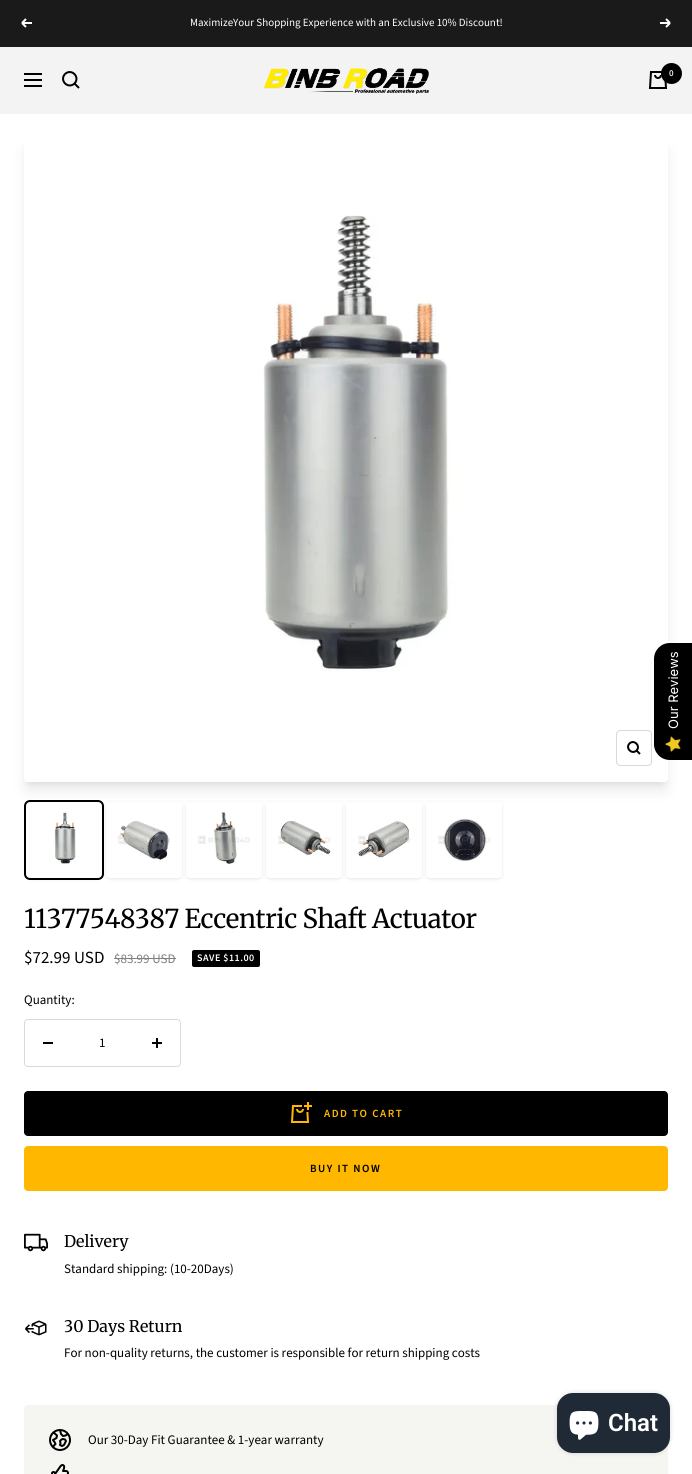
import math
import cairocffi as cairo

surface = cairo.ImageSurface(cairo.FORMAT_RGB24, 692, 1474)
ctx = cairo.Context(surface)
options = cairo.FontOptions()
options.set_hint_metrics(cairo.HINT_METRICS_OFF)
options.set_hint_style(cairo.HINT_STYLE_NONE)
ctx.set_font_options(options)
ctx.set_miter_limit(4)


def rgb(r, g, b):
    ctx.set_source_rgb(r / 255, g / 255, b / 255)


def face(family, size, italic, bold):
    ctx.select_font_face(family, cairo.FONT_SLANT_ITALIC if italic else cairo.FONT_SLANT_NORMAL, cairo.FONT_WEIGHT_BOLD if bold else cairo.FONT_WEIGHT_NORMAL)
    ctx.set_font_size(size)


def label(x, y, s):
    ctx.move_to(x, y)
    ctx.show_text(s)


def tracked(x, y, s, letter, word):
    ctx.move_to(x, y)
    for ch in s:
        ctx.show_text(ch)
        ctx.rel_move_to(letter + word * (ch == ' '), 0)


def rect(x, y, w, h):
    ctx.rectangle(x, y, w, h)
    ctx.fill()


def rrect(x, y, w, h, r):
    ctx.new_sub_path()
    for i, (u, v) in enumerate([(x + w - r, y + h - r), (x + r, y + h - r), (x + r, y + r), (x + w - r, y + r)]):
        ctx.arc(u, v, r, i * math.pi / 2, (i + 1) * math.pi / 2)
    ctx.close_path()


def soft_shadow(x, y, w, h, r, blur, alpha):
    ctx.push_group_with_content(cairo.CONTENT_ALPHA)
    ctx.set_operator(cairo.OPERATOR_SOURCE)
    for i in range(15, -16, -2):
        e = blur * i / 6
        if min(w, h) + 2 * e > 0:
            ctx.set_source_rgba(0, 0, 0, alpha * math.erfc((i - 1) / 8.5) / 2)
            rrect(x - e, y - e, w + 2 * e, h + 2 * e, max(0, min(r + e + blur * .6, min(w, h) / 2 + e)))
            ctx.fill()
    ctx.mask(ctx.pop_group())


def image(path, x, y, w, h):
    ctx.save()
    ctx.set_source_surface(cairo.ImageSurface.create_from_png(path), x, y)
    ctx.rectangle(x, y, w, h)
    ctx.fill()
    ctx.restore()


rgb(255, 255, 255)
ctx.paint()
rgb(26, 26, 26)
rect(0, 0, 692, 47)
ctx.new_path()
ctx.move_to(32, 23)
ctx.line_to(22, 23)
ctx.move_to(22, 23)
ctx.line_to(26, 27)
ctx.move_to(22, 23)
ctx.line_to(26, 19)
rgb(255, 255, 255)
ctx.stroke()
face('Source Sans Pro', 11, 0, 0)
label(190, 26, 'MaximizeYour Shopping Experience with an Exclusive 10% Discount!')
ctx.new_path()
ctx.move_to(660, 23)
ctx.line_to(670, 23)
ctx.move_to(670, 23)
ctx.line_to(666, 27)
ctx.move_to(670, 23)
ctx.line_to(666, 19)
ctx.stroke()
rgb(243, 243, 243)
rect(0, 47, 692, 67)
ctx.new_path()
ctx.move_to(24, 74)
ctx.line_to(42, 74)
ctx.move_to(24, 86)
ctx.line_to(42, 86)
ctx.close_path()
ctx.move_to(24, 80)
ctx.line_to(42, 80)
ctx.close_path()
ctx.move_to(74.5, 83.5)
ctx.curve_to(80.5, 77, 71.5, 68, 65, 74)
ctx.curve_to(59, 80.5, 68, 89.5, 74.5, 83.5)
ctx.close_path()
ctx.move_to(74.5, 83.5)
ctx.line_to(79, 88)
rgb(0, 0, 0)
ctx.stroke()
image('image0.png', 264, 68, 165, 26)
image('image1.png', 648, 71, 20, 18)
ctx.arc(671.5, 73.5, 10.5, 0, 2 * math.pi)
ctx.fill()
face('Source Sans Pro SemiBold', 9, 0, 0)
rgb(243, 243, 243)
label(669, 76, '0')
rgb(0, 0, 0)
soft_shadow(28, 146, 636, 636, 0, 3, 0.1)
soft_shadow(27, 151, 638, 638, 1, 7.5, 0.1)
image('image3.png', 24, 138, 644, 644)
rgb(0, 0, 0)
ctx.new_path()
ctx.move_to(654, 744)
ctx.line_to(654, 659)
ctx.curve_to(654, 650, 661, 643, 670, 643)
ctx.line_to(692, 643)
ctx.line_to(692, 760)
ctx.line_to(670, 760)
ctx.curve_to(661, 760, 654, 753, 654, 744)
ctx.close_path()
ctx.fill()
face('Inter', 13, 0, 0)
rgb(255, 255, 255)
ctx.save()
ctx.translate(678, 729)
ctx.rotate(-90 * math.pi / 180)
label(0, 0, 'Our Reviews')
ctx.restore()
image('image2.png', 665, 736, 16, 16)
rrect(616.5, 730.5, 35, 35, 3.5)
rgb(217, 217, 217)
ctx.set_line_width(1)
ctx.stroke()
ctx.new_path()
ctx.move_to(636.5, 750.5)
ctx.curve_to(641, 746, 634, 739, 629.5, 743.5)
ctx.curve_to(625, 748, 632, 755, 636.5, 750.5)
ctx.close_path()
ctx.move_to(636.5, 750.5)
ctx.line_to(640, 754)
rgb(0, 0, 0)
ctx.set_line_width(2)
ctx.stroke()
ctx.save()
ctx.set_fill_rule(cairo.FILL_RULE_EVEN_ODD)
ctx.new_path()
ctx.move_to(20, 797)
ctx.line_to(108, 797)
ctx.line_to(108, 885)
ctx.line_to(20, 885)
ctx.close_path()
ctx.move_to(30, 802)
ctx.line_to(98, 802)
ctx.curve_to(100, 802, 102, 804, 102, 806)
ctx.line_to(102, 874)
ctx.curve_to(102, 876, 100, 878, 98, 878)
ctx.line_to(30, 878)
ctx.curve_to(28, 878, 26, 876, 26, 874)
ctx.line_to(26, 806)
ctx.curve_to(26, 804, 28, 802, 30, 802)
ctx.close_path()
ctx.clip()
rgb(0, 0, 0)
soft_shadow(26, 803, 76, 76, 4, 1.5, 0.1)
ctx.restore()
image('image4.png', 53, 812, 23, 52)
rrect(25, 801, 78, 78, 5)
ctx.stroke()
ctx.save()
ctx.set_fill_rule(cairo.FILL_RULE_EVEN_ODD)
ctx.new_path()
ctx.move_to(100, 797)
ctx.line_to(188, 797)
ctx.line_to(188, 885)
ctx.line_to(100, 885)
ctx.close_path()
ctx.move_to(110, 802)
ctx.line_to(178, 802)
ctx.curve_to(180, 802, 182, 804, 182, 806)
ctx.line_to(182, 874)
ctx.curve_to(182, 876, 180, 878, 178, 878)
ctx.line_to(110, 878)
ctx.curve_to(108, 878, 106, 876, 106, 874)
ctx.line_to(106, 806)
ctx.curve_to(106, 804, 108, 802, 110, 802)
ctx.close_path()
ctx.clip()
rgb(0, 0, 0)
soft_shadow(106, 803, 76, 76, 4, 1.5, 0.1)
ctx.restore()
image('image5.png', 117, 821, 53, 40)
ctx.save()
ctx.set_fill_rule(cairo.FILL_RULE_EVEN_ODD)
ctx.new_path()
ctx.move_to(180, 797)
ctx.line_to(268, 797)
ctx.line_to(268, 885)
ctx.line_to(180, 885)
ctx.close_path()
ctx.move_to(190, 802)
ctx.line_to(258, 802)
ctx.curve_to(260, 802, 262, 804, 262, 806)
ctx.line_to(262, 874)
ctx.curve_to(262, 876, 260, 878, 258, 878)
ctx.line_to(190, 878)
ctx.curve_to(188, 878, 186, 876, 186, 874)
ctx.line_to(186, 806)
ctx.curve_to(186, 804, 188, 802, 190, 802)
ctx.close_path()
ctx.clip()
rgb(0, 0, 0)
soft_shadow(186, 803, 76, 76, 4, 1.5, 0.1)
ctx.restore()
image('image6.png', 197, 812, 53, 52)
ctx.save()
ctx.set_fill_rule(cairo.FILL_RULE_EVEN_ODD)
ctx.new_path()
ctx.move_to(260, 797)
ctx.line_to(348, 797)
ctx.line_to(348, 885)
ctx.line_to(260, 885)
ctx.close_path()
ctx.move_to(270, 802)
ctx.line_to(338, 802)
ctx.curve_to(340, 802, 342, 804, 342, 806)
ctx.line_to(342, 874)
ctx.curve_to(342, 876, 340, 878, 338, 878)
ctx.line_to(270, 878)
ctx.curve_to(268, 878, 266, 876, 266, 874)
ctx.line_to(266, 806)
ctx.curve_to(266, 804, 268, 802, 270, 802)
ctx.close_path()
ctx.clip()
rgb(0, 0, 0)
soft_shadow(266, 803, 76, 76, 4, 1.5, 0.1)
ctx.restore()
image('image7.png', 278, 821, 53, 36)
ctx.save()
ctx.set_fill_rule(cairo.FILL_RULE_EVEN_ODD)
ctx.new_path()
ctx.move_to(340, 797)
ctx.line_to(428, 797)
ctx.line_to(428, 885)
ctx.line_to(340, 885)
ctx.close_path()
ctx.move_to(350, 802)
ctx.line_to(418, 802)
ctx.curve_to(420, 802, 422, 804, 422, 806)
ctx.line_to(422, 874)
ctx.curve_to(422, 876, 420, 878, 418, 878)
ctx.line_to(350, 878)
ctx.curve_to(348, 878, 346, 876, 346, 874)
ctx.line_to(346, 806)
ctx.curve_to(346, 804, 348, 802, 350, 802)
ctx.close_path()
ctx.clip()
rgb(0, 0, 0)
soft_shadow(346, 803, 76, 76, 4, 1.5, 0.1)
ctx.restore()
image('image8.png', 358, 821, 52, 38)
ctx.save()
ctx.set_fill_rule(cairo.FILL_RULE_EVEN_ODD)
ctx.new_path()
ctx.move_to(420, 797)
ctx.line_to(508, 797)
ctx.line_to(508, 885)
ctx.line_to(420, 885)
ctx.close_path()
ctx.move_to(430, 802)
ctx.line_to(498, 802)
ctx.curve_to(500, 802, 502, 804, 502, 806)
ctx.line_to(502, 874)
ctx.curve_to(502, 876, 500, 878, 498, 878)
ctx.line_to(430, 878)
ctx.curve_to(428, 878, 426, 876, 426, 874)
ctx.line_to(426, 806)
ctx.curve_to(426, 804, 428, 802, 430, 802)
ctx.close_path()
ctx.clip()
rgb(0, 0, 0)
soft_shadow(426, 803, 76, 76, 4, 1.5, 0.1)
ctx.restore()
image('image9.png', 438, 819, 52, 43)
face('Merriweather', 26, 0, 0)
tracked(24, 928, '11377548387 Eccentric Shaft Actuator', -0.4, 0)
face('Source Sans Pro', 17, 0, 0)
label(24, 963, '$72.99 USD')
face('Source Sans Pro', 13, 0, 0)
rgb(128, 128, 128)
label(114, 963, '$83.99 USD')
rect(114, 958, 62, 1)
rgb(0, 0, 0)
rrect(192, 950, 68, 17, 2)
ctx.fill()
face('Source Sans Pro SemiBold', 10, 0, 0)
rgb(255, 255, 255)
tracked(197, 961, 'SAVE $11.00', 0.5, 0)
face('Source Sans Pro', 13, 0, 0)
rgb(0, 0, 0)
label(24, 1004, 'Quantity:')
rrect(24.5, 1019.5, 156, 47, 3.5)
rgb(217, 217, 217)
ctx.set_line_width(1)
ctx.stroke()
rgb(0, 0, 0)
rect(43, 1042, 10, 2)
label(99, 1047, '1')
image('image10.png', 152, 1038, 10, 10)
rrect(24, 1091, 644, 45, 4)
ctx.fill()
image('image11.png', 290, 1102, 22, 21)
face('Source Sans Pro SemiBold', 11, 0, 0)
rgb(255, 183, 0)
tracked(324, 1117, 'ADD TO CART', 1.5, 0)
rrect(24, 1146, 644, 45, 4)
ctx.fill()
rgb(0, 0, 0)
tracked(310, 1172, 'BUY IT NOW', 1.5, 0)
image('image12.png', 24, 1233, 24, 19)
face('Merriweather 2', 16, 0, 0)
label(64, 1247, 'Delivery')
face('Source Sans Pro', 13, 0, 0)
label(64, 1273, 'Standard shipping: (10-20Days)')
image('image13.png', 25, 1320, 22, 16)
face('Merriweather 2', 16, 0, 0)
label(64, 1332, '30 Days Return')
face('Source Sans Pro', 13, 0, 0)
label(64, 1357, 'For non-quality returns, the customer is responsible for return shipping costs')
rgb(245, 245, 241)
rrect(24, 1405, 644, 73, 4)
ctx.fill()
image('image14.png', 49, 1429, 22, 22)
rgb(0, 0, 0)
label(88, 1444, 'Our 30-Day Fit Guarantee & 1-year warranty')
image('image15.png', 51, 1464, 18, 10)
rgb(0, 0, 0)
soft_shadow(557, 1393, 113, 60, 16, 2.5, 0.15)
rgb(32, 42, 54)
rrect(557, 1393, 113, 60, 16)
ctx.fill()
image('image16.png', 569, 1411, 30, 29)
face('Roboto SemiBold', 24, 0, 0)
rgb(255, 255, 255)
label(608, 1431, 'Chat')
surface.write_to_png('render.png')
